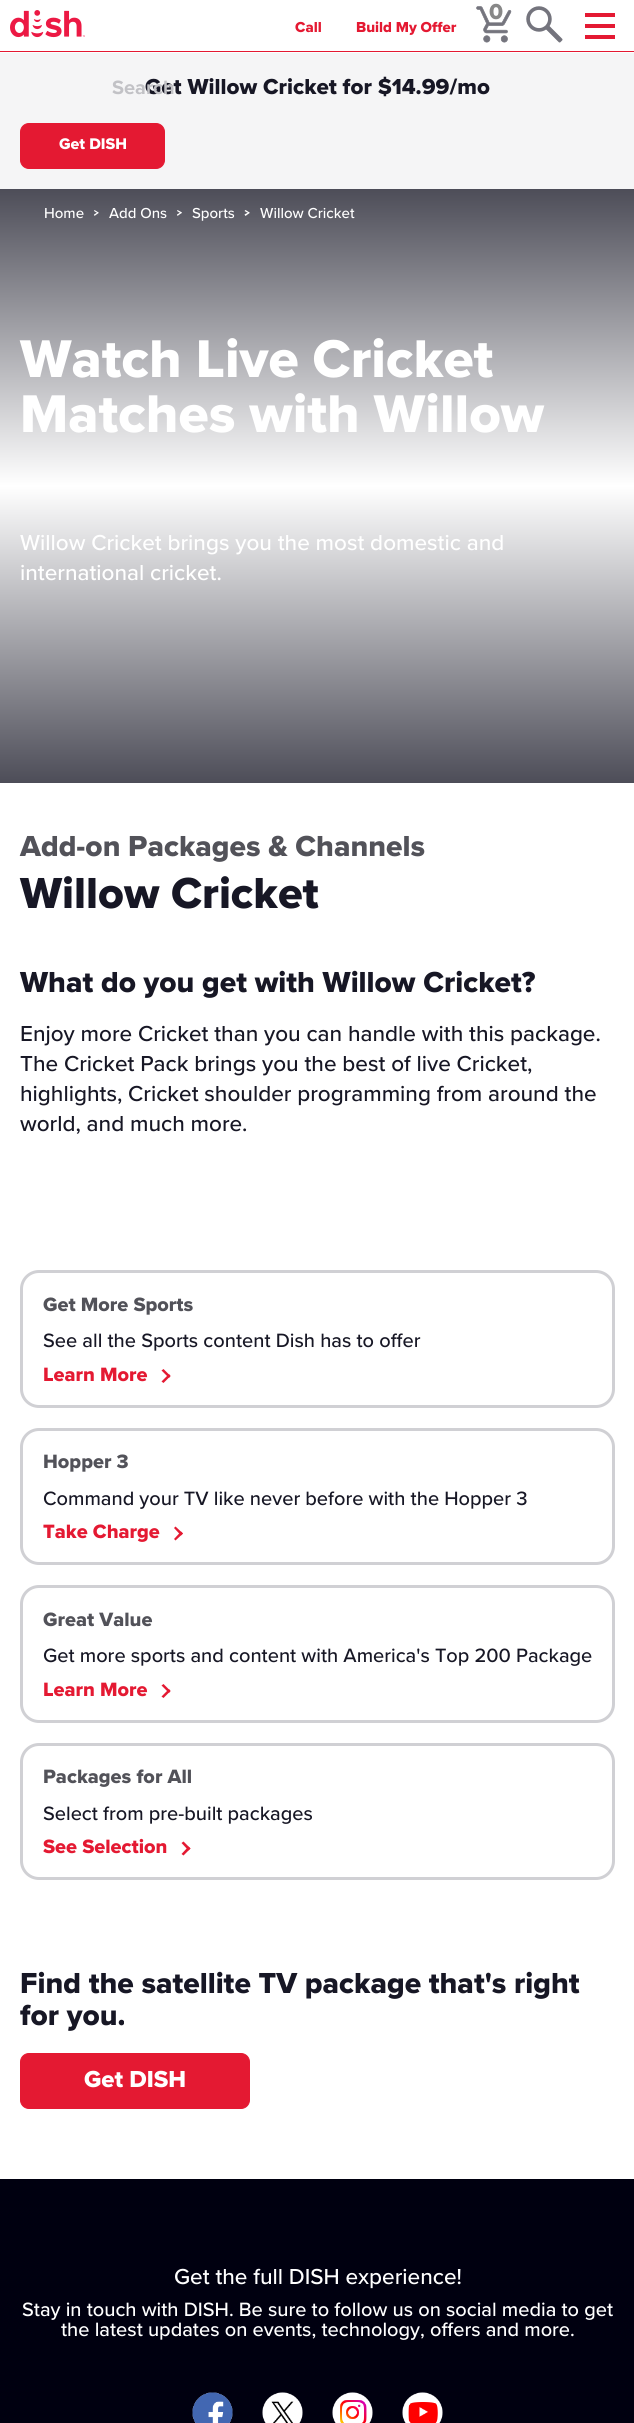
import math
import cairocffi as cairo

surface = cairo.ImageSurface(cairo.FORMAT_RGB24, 634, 2423)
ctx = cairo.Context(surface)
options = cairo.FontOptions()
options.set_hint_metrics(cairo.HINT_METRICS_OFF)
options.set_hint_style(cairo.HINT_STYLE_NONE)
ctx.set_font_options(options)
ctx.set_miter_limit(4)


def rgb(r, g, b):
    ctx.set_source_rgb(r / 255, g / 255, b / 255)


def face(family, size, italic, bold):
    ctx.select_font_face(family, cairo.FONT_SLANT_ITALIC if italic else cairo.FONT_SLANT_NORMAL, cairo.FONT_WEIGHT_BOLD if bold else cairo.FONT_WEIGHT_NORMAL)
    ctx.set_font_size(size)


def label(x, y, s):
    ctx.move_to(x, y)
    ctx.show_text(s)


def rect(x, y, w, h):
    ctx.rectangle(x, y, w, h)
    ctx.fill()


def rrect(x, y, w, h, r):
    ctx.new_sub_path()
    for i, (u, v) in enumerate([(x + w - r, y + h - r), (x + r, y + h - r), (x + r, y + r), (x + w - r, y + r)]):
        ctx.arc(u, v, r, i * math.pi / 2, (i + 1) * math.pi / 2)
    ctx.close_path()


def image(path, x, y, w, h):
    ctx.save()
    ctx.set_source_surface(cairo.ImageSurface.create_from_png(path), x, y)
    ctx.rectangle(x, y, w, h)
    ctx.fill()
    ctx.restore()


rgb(255, 255, 255)
ctx.paint()
rgb(228, 25, 50)
rect(0, 51, 634, 1)
image('image0.png', 10, 10, 75, 28)
face('Proxima Nova ExtraBold', 15, 0, 0)
label(295, 32, 'Call')
label(356, 32, 'Build My Offer')
image('image1.png', 476, 6, 36, 37)
face('Proxima Nova ExtraBold', 22.5, 0, 0)
rgb(136, 136, 136)
label(489, 19, '0')
image('image2.png', 526, 6, 37, 37)
rgb(228, 25, 50)
rect(585, 13, 30, 4)
rect(585, 24, 30, 4)
rect(585, 35, 30, 4)
rgb(245, 245, 246)
rect(0, 53, 634, 136)
rgb(23, 23, 37)
label(145, 94, 'Get Willow Cricket for $14.99/mo')
face('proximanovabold', 20, 0, 1)
rgb(194, 194, 198)
label(112, 94, 'Search')
rgb(228, 25, 50)
rrect(20.5, 123.5, 144, 45, 8.5)
ctx.fill_preserve()
ctx.set_line_width(1)
ctx.stroke()
face('Proxima Nova ExtraBold', 16, 0, 0)
rgb(255, 255, 255)
label(59, 149, 'Get DISH')
gradient = cairo.LinearGradient(318, 783, 318, 189)
gradient.add_color_stop_rgba(0, 0.302, 0.302, 0.345, 1)
gradient.add_color_stop_rgba(0.5, 1, 1, 1, 1)
gradient.add_color_stop_rgba(1, 0.302, 0.302, 0.345, 1)
ctx.set_source(gradient)
rect(0, 189, 634, 594)
face('Proxima Nova Medium', 15, 0, 0)
rgb(255, 255, 255)
label(44, 218, 'Home')
ctx.new_path()
ctx.move_to(98, 213.5)
ctx.line_to(94, 211)
ctx.line_to(94.5, 210)
ctx.line_to(98.5, 212.5)
ctx.close_path()
ctx.fill()
ctx.new_path()
ctx.move_to(94.5, 216)
ctx.line_to(94, 214.5)
ctx.line_to(98, 212)
ctx.line_to(98.5, 213)
ctx.close_path()
ctx.fill()
label(109, 218, 'Add Ons')
ctx.new_path()
ctx.move_to(181, 213.5)
ctx.line_to(177, 211)
ctx.line_to(177.5, 210)
ctx.line_to(182, 212.5)
ctx.close_path()
ctx.fill()
ctx.new_path()
ctx.move_to(177.5, 216)
ctx.line_to(177, 214.5)
ctx.line_to(181, 212)
ctx.line_to(181.5, 213)
ctx.close_path()
ctx.fill()
label(192, 218, 'Sports')
ctx.new_path()
ctx.move_to(249, 213.5)
ctx.line_to(244.5, 211)
ctx.line_to(245.5, 210)
ctx.line_to(249.5, 212.5)
ctx.close_path()
ctx.fill()
ctx.new_path()
ctx.move_to(245.5, 216)
ctx.line_to(244.5, 214.5)
ctx.line_to(249, 212)
ctx.line_to(249.5, 213)
ctx.close_path()
ctx.fill()
label(260, 218, 'Willow Cricket')
face('Proxima Nova ExtraBold', 55, 0, 0)
label(20, 377, 'Watch Live Cricket')
label(20, 432, 'Matches with Willow')
face('Proxima Nova Medium', 22.5, 0, 0)
label(20, 550, 'Willow Cricket brings you the most domestic and')
label(20, 580, 'international cricket.')
face('Proxima Nova ExtraBold', 30, 0, 0)
rgb(82, 82, 89)
label(20, 856, 'Add-on Packages & Channels')
face('Proxima Nova ExtraBold', 45, 0, 0)
rgb(23, 23, 37)
label(20, 908, 'Willow Cricket')
face('Proxima Nova ExtraBold', 30, 0, 0)
label(20, 992, 'What do you get with Willow Cricket?')
face('Proxima Nova Medium', 22.5, 0, 0)
label(20, 1041, 'Enjoy more Cricket than you can handle with this package.')
label(20, 1071, 'The Cricket Pack brings you the best of live Cricket,')
label(20, 1101, 'highlights, Cricket shoulder programming from around the')
label(20, 1131, 'world, and much more.')
rrect(21.5, 1271.5, 592, 135, 17.5)
rgb(208, 208, 212)
ctx.set_line_width(3)
ctx.stroke()
face('Proxima Nova ExtraBold', 20, 0, 0)
rgb(82, 82, 89)
label(43, 1311, 'Get More Sports')
face('Proxima Nova Medium', 20, 0, 0)
rgb(23, 23, 37)
label(43, 1347, 'See all the Sports content Dish has to offer')
face('Proxima Nova ExtraBold', 20, 0, 0)
rgb(228, 25, 50)
label(43, 1381, 'Learn More')
ctx.new_path()
ctx.move_to(161.5, 1370.5)
ctx.line_to(163.5, 1369)
ctx.line_to(170.5, 1376)
ctx.line_to(169, 1378)
ctx.close_path()
ctx.fill()
ctx.new_path()
ctx.move_to(161.5, 1381.5)
ctx.line_to(169, 1374)
ctx.line_to(170.5, 1376)
ctx.line_to(163.5, 1383)
ctx.close_path()
ctx.fill()
rrect(21.5, 1429.5, 592, 134, 17.5)
rgb(208, 208, 212)
ctx.stroke()
rgb(82, 82, 89)
label(43, 1468, 'Hopper 3')
face('Proxima Nova Medium', 20, 0, 0)
rgb(23, 23, 37)
label(43, 1505, 'Command your TV like never before with the Hopper 3')
face('Proxima Nova ExtraBold', 20, 0, 0)
rgb(228, 25, 50)
label(43, 1538, 'Take Charge')
ctx.new_path()
ctx.move_to(174, 1528)
ctx.line_to(175.5, 1526.5)
ctx.line_to(183, 1533.5)
ctx.line_to(181, 1535.5)
ctx.close_path()
ctx.fill()
ctx.new_path()
ctx.move_to(174, 1539)
ctx.line_to(181, 1531.5)
ctx.line_to(183, 1533.5)
ctx.line_to(175.5, 1540.5)
ctx.close_path()
ctx.fill()
rrect(21.5, 1586.5, 592, 135, 17.5)
rgb(208, 208, 212)
ctx.stroke()
rgb(82, 82, 89)
label(43, 1626, 'Great Value')
face('Proxima Nova Medium', 20, 0, 0)
rgb(23, 23, 37)
label(43, 1662, 'Get more sports and content with America\'s Top 200 Package')
face('Proxima Nova ExtraBold', 20, 0, 0)
rgb(228, 25, 50)
label(43, 1696, 'Learn More')
ctx.new_path()
ctx.move_to(161.5, 1685.5)
ctx.line_to(163.5, 1684)
ctx.line_to(170.5, 1691)
ctx.line_to(169, 1693)
ctx.close_path()
ctx.fill()
ctx.new_path()
ctx.move_to(161.5, 1696.5)
ctx.line_to(169, 1689)
ctx.line_to(170.5, 1691)
ctx.line_to(163.5, 1698)
ctx.close_path()
ctx.fill()
rrect(21.5, 1744.5, 592, 134, 17.5)
rgb(208, 208, 212)
ctx.stroke()
rgb(82, 82, 89)
label(43, 1783, 'Packages for All')
face('Proxima Nova Medium', 20, 0, 0)
rgb(23, 23, 37)
label(43, 1820, 'Select from pre-built packages')
face('Proxima Nova ExtraBold', 20, 0, 0)
rgb(228, 25, 50)
label(43, 1853, 'See Selection')
ctx.new_path()
ctx.move_to(181.5, 1843)
ctx.line_to(183.5, 1841.5)
ctx.line_to(190.5, 1848.5)
ctx.line_to(188.5, 1850.5)
ctx.close_path()
ctx.fill()
ctx.new_path()
ctx.move_to(181.5, 1854)
ctx.line_to(188.5, 1846.5)
ctx.line_to(190.5, 1848.5)
ctx.line_to(183.5, 1855.5)
ctx.close_path()
ctx.fill()
face('Proxima Nova ExtraBold', 30, 0, 0)
rgb(23, 23, 37)
label(20, 1993, 'Find the satellite TV package that\'s right')
label(20, 2025, 'for you.')
rgb(228, 25, 50)
rrect(20.5, 2053.5, 229, 55, 8.5)
ctx.fill_preserve()
ctx.set_line_width(1)
ctx.stroke()
face('Proxima Nova ExtraBold', 24, 0, 0)
rgb(255, 255, 255)
label(84, 2087, 'Get DISH')
rgb(0, 0, 16)
rect(0, 2179, 634, 244)
face('Proxima Nova Medium', 22.5, 0, 0)
rgb(255, 255, 255)
label(174, 2284, 'Get the full DISH experience!')
face('Proxima Nova Medium', 20, 0, 0)
label(22, 2316, 'Stay in touch with DISH. Be sure to follow us on social media to get')
label(61, 2336, 'the latest updates on events, technology, offers and more.')
image('image3.png', 192, 2392, 41, 31)
image('image4.png', 262, 2392, 41, 31)
image('image5.png', 332, 2392, 41, 31)
image('image6.png', 402, 2392, 41, 31)
surface.write_to_png('render.png')
